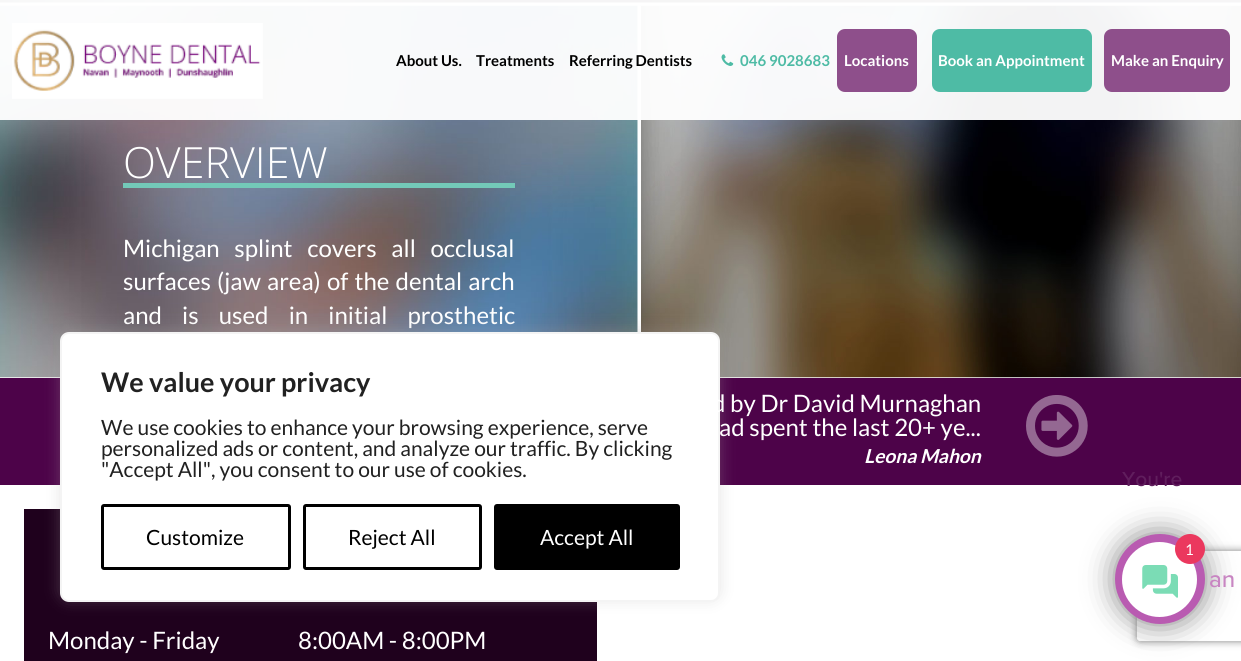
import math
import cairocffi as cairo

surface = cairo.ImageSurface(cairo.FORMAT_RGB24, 1241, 661)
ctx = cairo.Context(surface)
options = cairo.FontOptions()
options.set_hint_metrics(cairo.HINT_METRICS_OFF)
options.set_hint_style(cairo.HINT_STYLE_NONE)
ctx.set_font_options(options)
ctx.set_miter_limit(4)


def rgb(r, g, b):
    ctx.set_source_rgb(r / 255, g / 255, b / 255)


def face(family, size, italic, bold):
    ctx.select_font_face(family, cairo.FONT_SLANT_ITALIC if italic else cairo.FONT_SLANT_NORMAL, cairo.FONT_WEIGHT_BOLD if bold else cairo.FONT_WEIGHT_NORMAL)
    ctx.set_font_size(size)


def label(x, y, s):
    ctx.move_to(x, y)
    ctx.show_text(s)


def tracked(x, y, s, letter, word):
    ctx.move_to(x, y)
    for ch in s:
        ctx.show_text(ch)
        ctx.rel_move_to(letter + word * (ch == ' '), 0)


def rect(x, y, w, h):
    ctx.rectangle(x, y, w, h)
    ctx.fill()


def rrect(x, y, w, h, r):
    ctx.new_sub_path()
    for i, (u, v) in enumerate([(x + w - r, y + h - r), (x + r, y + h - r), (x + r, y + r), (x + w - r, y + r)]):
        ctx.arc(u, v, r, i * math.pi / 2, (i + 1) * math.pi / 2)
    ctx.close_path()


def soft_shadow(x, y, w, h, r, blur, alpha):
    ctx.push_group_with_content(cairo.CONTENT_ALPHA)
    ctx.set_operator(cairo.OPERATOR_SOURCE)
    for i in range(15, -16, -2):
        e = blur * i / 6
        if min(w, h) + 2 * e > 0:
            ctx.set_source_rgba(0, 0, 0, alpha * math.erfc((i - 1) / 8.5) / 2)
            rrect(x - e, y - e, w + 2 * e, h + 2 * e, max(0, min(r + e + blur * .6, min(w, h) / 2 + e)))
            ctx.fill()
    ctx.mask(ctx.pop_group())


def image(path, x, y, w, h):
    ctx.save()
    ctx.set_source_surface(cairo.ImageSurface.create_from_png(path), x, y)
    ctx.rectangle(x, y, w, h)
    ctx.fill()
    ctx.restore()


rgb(255, 255, 255)
ctx.paint()
image('image2.png', 0, 0, 1241, 3)
image('image3.png', 0, 5, 638, 373)
image('image4.png', 640, 5, 601, 373)
rgb(255, 255, 255)
rect(640, 6, 1, 326)
ctx.set_source_rgba(1, 1, 1, 0.95)
rect(0, 0, 1241, 120)
image('image0.png', 12, 23, 251, 76)
face('Lato', 15, 0, 1)
rgb(0, 0, 0)
label(396, 66, 'About Us.')
label(476, 66, 'Treatments')
label(569, 66, 'Referring Dentists')
image('image1.png', 721, 54, 13, 12)
rgb(78, 187, 165)
label(740, 66, '046 9028683')
rgb(142, 79, 139)
rrect(837, 29, 80, 63, 8)
ctx.fill()
rgb(255, 255, 255)
label(844, 66, 'Locations')
rgb(78, 187, 165)
rrect(932, 29, 160, 63, 8)
ctx.fill()
rgb(255, 255, 255)
label(938, 66, 'Book an Appointment')
rgb(142, 79, 139)
rrect(1104, 29, 126, 63, 8)
ctx.fill()
rgb(255, 255, 255)
label(1111, 66, 'Make an Enquiry')
rgb(115, 201, 184)
rect(123, 183, 392, 5)
face('Open Sans Light', 43, 0, 0)
rgb(255, 255, 255)
label(123, 178, 'OVERVIEW')
face('Lato', 24, 0, 0)
tracked(123, 257, 'Michigan splint covers all occlusal', 0, 10)
tracked(123, 290, 'surfaces (jaw area) of the dental arch', 0, 1.5)
tracked(123, 324, 'and is used in initial prosthetic', 0, 15.5)
rgb(77, 3, 73)
rect(0, 378, 1241, 107)
rgb(31, 1, 29)
rect(24, 509, 573, 152)
rgb(172, 171, 171)
soft_shadow(60, 330, 660, 270, 9, 7.5, 0.3)
rgb(255, 255, 255)
rrect(61, 333, 658, 268, 8)
ctx.fill_preserve()
rgb(244, 244, 244)
ctx.stroke()
face('Lato', 27, 0, 1)
rgb(33, 33, 33)
label(101, 392, 'We value your privacy')
face('Lato', 21, 0, 0)
label(101, 435, 'We use cookies to enhance your browsing experience, serve')
label(101, 456, 'personalized ads or content, and analyze our traffic. By clicking')
label(101, 477, '"Accept All", you consent to our use of cookies.')
rrect(102.5, 505.5, 187, 63, 1.5)
rgb(0, 0, 0)
ctx.set_line_width(3)
ctx.stroke()
label(146, 545, 'Customize')
rrect(304.5, 505.5, 176, 63, 1.5)
ctx.stroke()
label(348, 545, 'Reject All')
rrect(495.5, 505.5, 183, 63, 1.5)
ctx.fill_preserve()
ctx.stroke()
rgb(255, 255, 255)
label(540, 545, 'Accept All')
face('Lato', 24, 0, 0)
label(712, 412, 'd by Dr David Murnaghan')
label(719, 436, 'ad spent the last 20+ ye...')
face('Lato', 19.25, 1, 1)
label(864, 463, 'Leona Mahon')
image('image5.png', 1026, 395, 62, 62)
rgb(0, 0, 0)
soft_shadow(1115, 534, 90, 90, 45, 15, 0.5)
ctx.save()
ctx.set_fill_rule(cairo.FILL_RULE_EVEN_ODD)
ctx.new_path()
ctx.move_to(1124, 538)
ctx.line_to(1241, 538)
ctx.line_to(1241, 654)
ctx.line_to(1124, 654)
ctx.close_path()
ctx.move_to(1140, 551)
ctx.line_to(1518, 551)
ctx.curve_to(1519.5, 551, 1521, 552.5, 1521, 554)
ctx.line_to(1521, 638)
ctx.curve_to(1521, 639.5, 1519.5, 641, 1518, 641)
ctx.line_to(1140, 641)
ctx.curve_to(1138.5, 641, 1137, 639.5, 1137, 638)
ctx.line_to(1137, 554)
ctx.curve_to(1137, 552.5, 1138.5, 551, 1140, 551)
ctx.close_path()
ctx.clip()
rgb(128, 128, 128)
soft_shadow(1137, 551, 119, 90, 3, 4, 1)
ctx.restore()
rgb(185, 91, 177)
ctx.arc(1160, 579, 45, 0, 2 * math.pi)
ctx.fill()
face('Proxima Nova Medium', 21, 0, 0)
rgb(96, 30, 93)
label(1122, 486, 'You\'re')
rgb(255, 255, 255)
ctx.new_path()
ctx.arc(1159.5, 579.5, 37.5, 0, 2 * math.pi)
ctx.fill()
image('image6.png', 1142, 565, 36, 33)
rgb(235, 56, 94)
ctx.arc(1190, 549, 15, 0, 2 * math.pi)
ctx.fill()
face('Lato', 15, 0, 0)
rgb(255, 255, 255)
label(1185, 555, '1')
face('Proxima Nova Medium', 24, 0, 0)
rgb(200, 133, 194)
label(1209, 587, 'an')
face('Lato', 24, 0, 0)
rgb(255, 255, 255)
label(48, 649, 'Monday - Friday')
label(298, 649, '8:00AM - 8:00PM')
surface.write_to_png('render.png')
